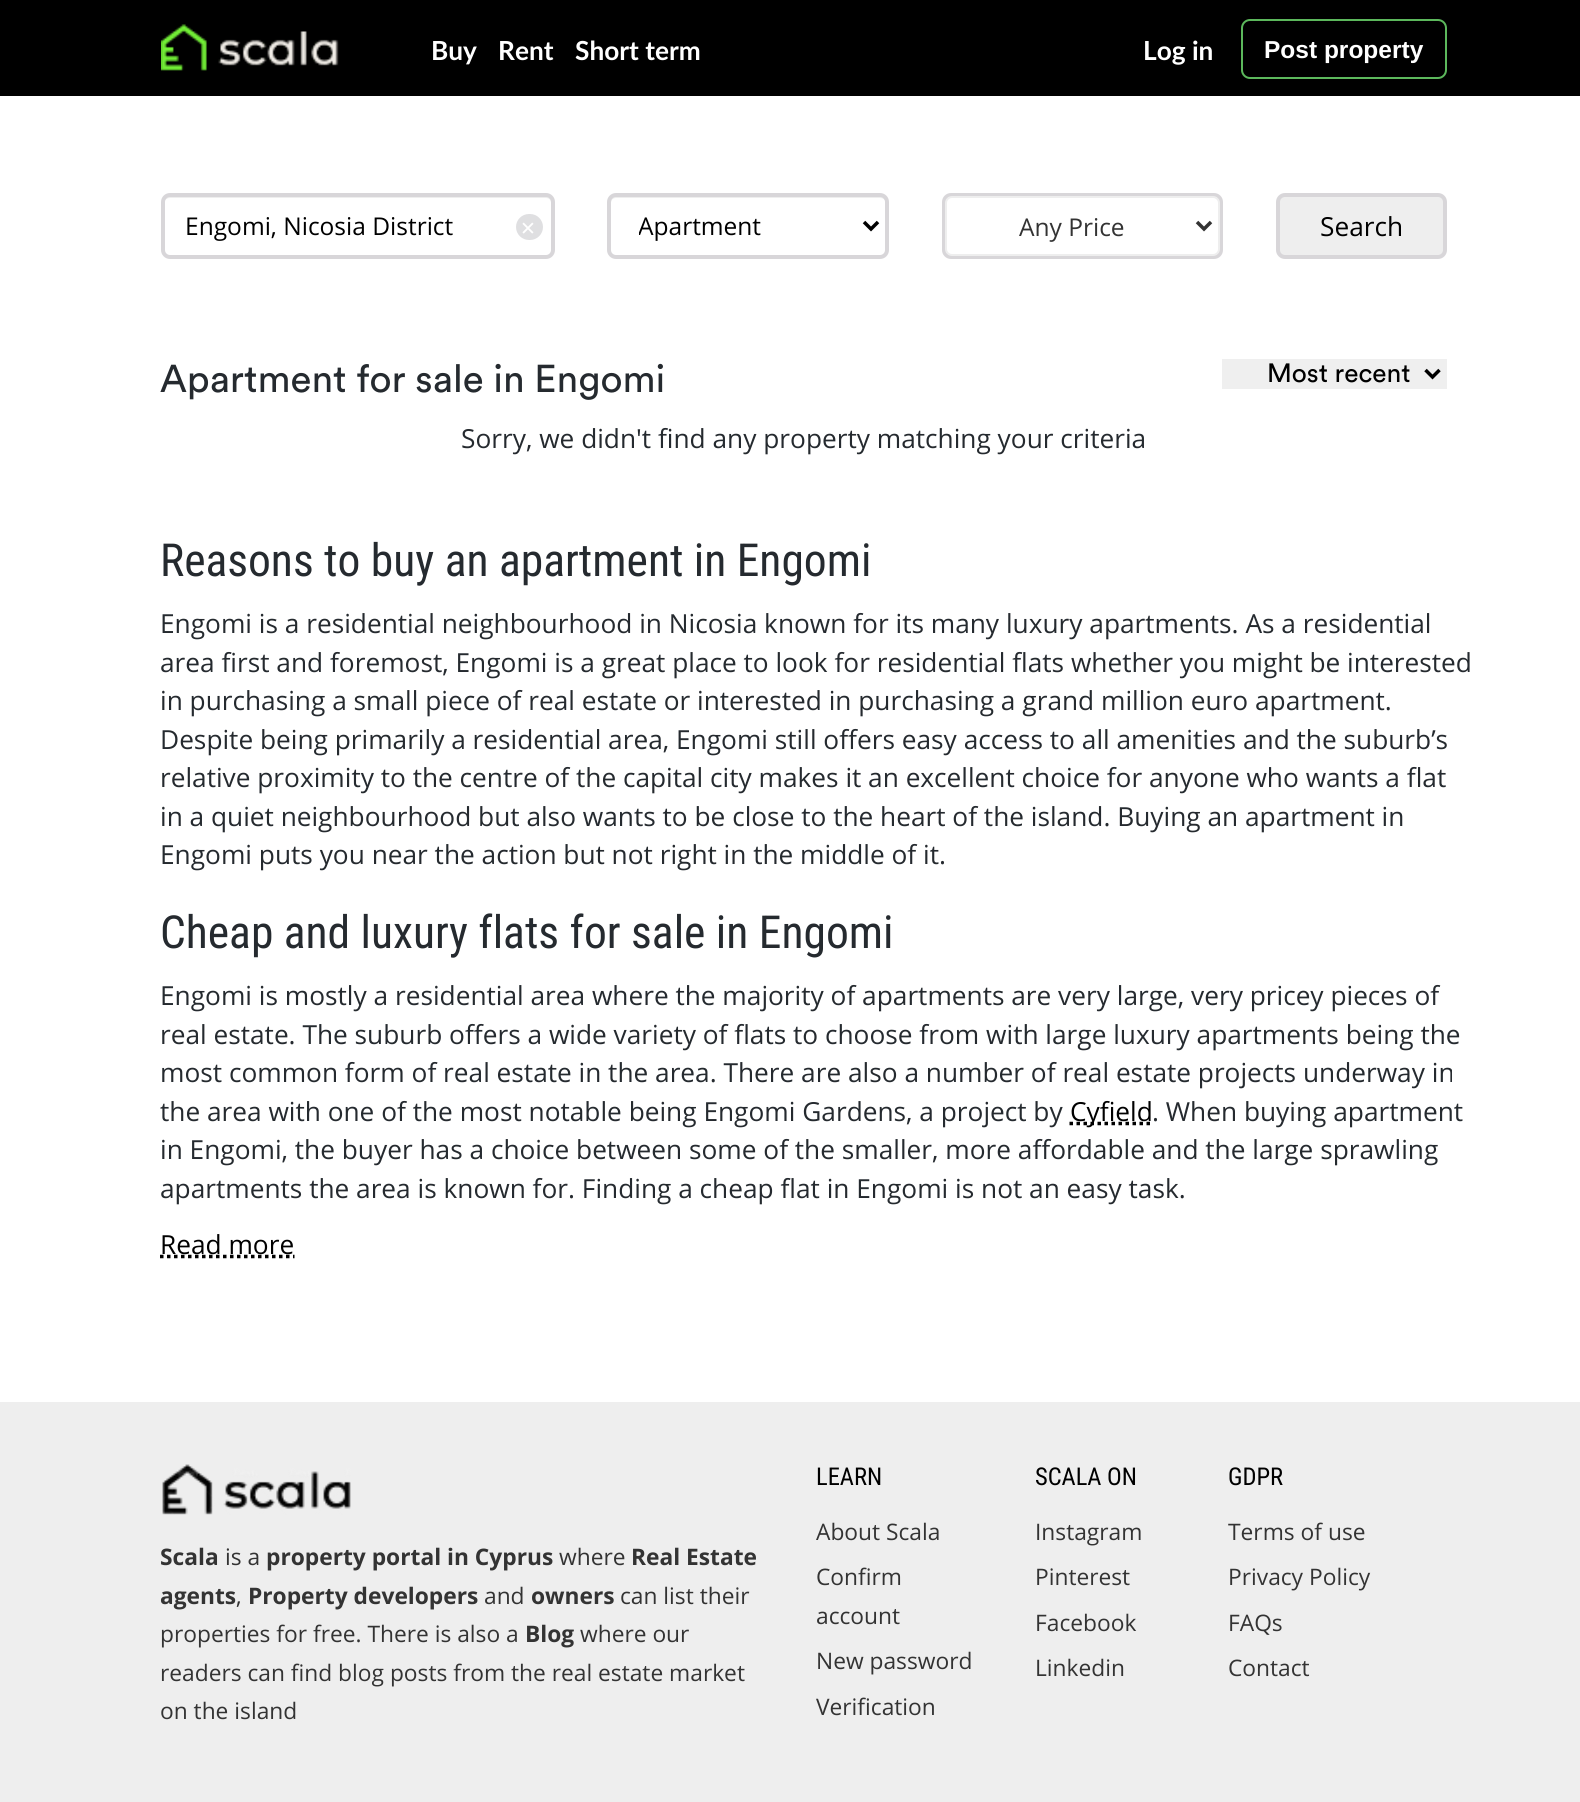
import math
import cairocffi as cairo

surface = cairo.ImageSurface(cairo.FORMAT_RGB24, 1580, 1802)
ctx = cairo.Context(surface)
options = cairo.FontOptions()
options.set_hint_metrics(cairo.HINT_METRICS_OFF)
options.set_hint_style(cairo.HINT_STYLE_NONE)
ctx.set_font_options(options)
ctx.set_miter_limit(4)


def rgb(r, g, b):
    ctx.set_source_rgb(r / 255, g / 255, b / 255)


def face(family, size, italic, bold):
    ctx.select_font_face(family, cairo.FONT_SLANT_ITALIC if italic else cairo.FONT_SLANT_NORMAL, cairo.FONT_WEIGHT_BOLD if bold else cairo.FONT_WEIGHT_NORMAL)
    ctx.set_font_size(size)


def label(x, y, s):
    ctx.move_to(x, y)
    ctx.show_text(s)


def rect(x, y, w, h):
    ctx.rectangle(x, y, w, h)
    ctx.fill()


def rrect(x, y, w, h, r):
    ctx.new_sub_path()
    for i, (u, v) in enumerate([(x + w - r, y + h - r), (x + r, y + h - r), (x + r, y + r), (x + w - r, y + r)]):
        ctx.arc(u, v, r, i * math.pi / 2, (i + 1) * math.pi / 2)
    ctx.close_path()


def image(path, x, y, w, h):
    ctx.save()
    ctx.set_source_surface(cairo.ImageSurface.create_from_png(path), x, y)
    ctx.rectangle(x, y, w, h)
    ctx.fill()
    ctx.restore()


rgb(255, 255, 255)
ctx.paint()
rgb(0, 0, 0)
rect(0, 0, 1580, 96)
image('image0.png', 161, 24, 178, 47)
face('Lato', 26.25, 0, 1)
rgb(255, 255, 255)
label(431, 60, 'Buy')
label(498, 60, 'Rent')
label(575, 60, 'Short term')
label(1143, 60, 'Log in')
rrect(1242, 20, 204, 58, 8)
rgb(92, 184, 92)
ctx.stroke()
face('Liberation Sans', 24.5, 0, 1)
rgb(255, 255, 255)
label(1264, 58, 'Post property')
rgb(238, 238, 238)
ctx.new_path()
ctx.move_to(170, 198)
ctx.line_to(546, 198)
ctx.curve_to(549, 198, 551, 200, 551, 203)
ctx.line_to(551, 201)
ctx.curve_to(551, 198, 549, 196, 546, 196)
ctx.line_to(170, 196)
ctx.curve_to(168, 196, 165, 198, 165, 200)
ctx.curve_to(166, 199, 168, 198, 170, 198)
ctx.close_path()
ctx.fill()
rrect(163, 195, 390, 62, 7)
rgb(216, 214, 217)
ctx.set_line_width(4)
ctx.stroke()
face('Open Sans', 24.5, 0, 0)
rgb(0, 0, 0)
label(185, 235, 'Engomi, Nicosia District')
rgb(223, 223, 225)
rrect(516, 214, 27, 26, 13)
ctx.fill()
face('DejaVu Sans', 19, 0, 0)
rgb(255, 255, 255)
label(520, 235, '✕')
rgb(238, 238, 238)
ctx.new_path()
ctx.move_to(616, 198)
ctx.line_to(880, 198)
ctx.curve_to(883, 198, 886, 200, 886, 203)
ctx.line_to(886, 201)
ctx.curve_to(886, 198, 884, 196, 881, 196)
ctx.line_to(616, 196)
ctx.curve_to(613, 196, 611, 198, 611, 201)
ctx.line_to(611, 203)
ctx.curve_to(611, 200, 613, 198, 616, 198)
ctx.close_path()
ctx.fill()
rrect(609, 195, 278, 62, 7)
rgb(216, 214, 217)
ctx.stroke()
ctx.new_path()
ctx.move_to(864, 222)
ctx.line_to(871, 229)
ctx.line_to(878, 222)
rgb(0, 0, 0)
ctx.set_line_width(3.5)
ctx.stroke()
ctx.save()
ctx.rectangle(639, 208, 198, 37)
ctx.clip()
face('Open Sans', 24.5, 0, 0)
label(638, 235, 'Apartment')
ctx.restore()
rrect(944, 195, 277, 62, 7)
rgb(216, 214, 217)
ctx.set_line_width(4)
ctx.stroke()
rgb(255, 255, 255)
rrect(946, 197, 273, 58, 6)
ctx.fill_preserve()
rgb(238, 238, 238)
ctx.set_line_width(2)
ctx.stroke()
ctx.new_path()
ctx.move_to(1197, 222)
ctx.line_to(1204, 229)
ctx.line_to(1211, 222)
rgb(51, 51, 51)
ctx.set_line_width(3.5)
ctx.stroke()
face('Open Sans', 24.5, 0, 0)
label(1019, 236, 'Any Price')
rgb(238, 238, 238)
rrect(1278, 195, 167, 62, 7)
ctx.fill_preserve()
rgb(216, 214, 217)
ctx.set_line_width(4)
ctx.stroke()
face('Open Sans', 26.25, 0, 0)
rgb(0, 0, 0)
label(1320, 236, 'Search')
face('Circular', 38.5, 0, 0)
rgb(37, 42, 47)
label(160, 392, 'Apartment for sale in Engomi')
rgb(239, 239, 239)
rect(1222, 359, 225, 30)
ctx.new_path()
ctx.move_to(1425.5, 370)
ctx.line_to(1432.5, 377)
ctx.line_to(1439.5, 370)
rgb(0, 0, 0)
ctx.set_line_width(3.5)
ctx.stroke()
face('Circular', 26.25, 0, 0)
label(1267, 382, 'Most recent')
face('Open Sans', 26.25, 0, 0)
rgb(37, 42, 47)
label(461, 448, 'Sorry, we didn\'t find any property matching your criteria')
face('Roboto Condensed', 45.5, 0, 0)
label(160, 576, 'Reasons to buy an apartment in Engomi')
face('Open Sans', 26.25, 0, 0)
label(160, 633, 'Engomi is a residential neighbourhood in Nicosia known for its many luxury apartments. As a residential')
label(160, 672, 'area first and foremost, Engomi is a great place to look for residential flats whether you might be interested')
label(160, 710, 'in purchasing a small piece of real estate or interested in purchasing a grand million euro apartment.')
label(160, 749, 'Despite being primarily a residential area, Engomi still offers easy access to all amenities and the suburb’s')
label(160, 787, 'relative proximity to the centre of the capital city makes it an excellent choice for anyone who wants a flat')
label(160, 826, 'in a quiet neighbourhood but also wants to be close to the heart of the island. Buying an apartment in')
label(160, 864, 'Engomi puts you near the action but not right in the middle of it.')
face('Roboto Condensed', 45.5, 0, 0)
label(160, 948, 'Cheap and luxury flats for sale in Engomi')
face('Open Sans', 26.25, 0, 0)
label(160, 1005, 'Engomi is mostly a residential area where the majority of apartments are very large, very pricey pieces of')
label(160, 1044, 'real estate. The suburb offers a wide variety of flats to choose from with large luxury apartments being the')
label(160, 1082, 'most common form of real estate in the area. There are also a number of real estate projects underway in')
label(160, 1121, 'the area with one of the most notable being Engomi Gardens, a project by')
ctx.new_path()
ctx.move_to(1069.5, 1123.5)
ctx.line_to(1152.5, 1123.5)
rgb(0, 0, 0)
ctx.set_dash([3.5, 3.5])
ctx.stroke()
label(1070, 1121, 'Cyfield')
rgb(37, 42, 47)
label(1152, 1121, '. When buying apartment')
label(160, 1159, 'in Engomi, the buyer has a choice between some of the smaller, more affordable and the large sprawling')
label(160, 1198, 'apartments the area is known for. Finding a cheap flat in Engomi is not an easy task.')
ctx.new_path()
ctx.move_to(160, 1256.5)
ctx.line_to(294.5, 1256.5)
rgb(0, 0, 0)
ctx.stroke()
label(160, 1254, 'Read more')
rgb(238, 238, 238)
rect(0, 1402, 1580, 400)
image('image1.png', 162, 1464, 189, 51)
face('Open Sans', 22.75, 0, 1)
rgb(51, 51, 51)
label(160, 1565, 'Scala')
face('Open Sans', 22.75, 0, 0)
label(225, 1565, 'is a')
face('Open Sans', 22.75, 0, 1)
label(266, 1565, 'property portal in Cyprus')
face('Open Sans', 22.75, 0, 0)
label(559, 1565, 'where')
face('Open Sans', 22.75, 0, 1)
label(631, 1565, 'Real Estate')
label(160, 1604, 'agents')
face('Open Sans', 22.75, 0, 0)
label(236, 1604, ',')
face('Open Sans', 22.75, 0, 1)
label(248, 1604, 'Property developers')
face('Open Sans', 22.75, 0, 0)
label(484, 1604, 'and')
face('Open Sans', 22.75, 0, 1)
label(531, 1604, 'owners')
face('Open Sans', 22.75, 0, 0)
label(620, 1604, 'can list their')
label(160, 1642, 'properties for free. There is also a')
face('Open Sans', 22.75, 0, 1)
label(525, 1642, 'Blog')
face('Open Sans', 22.75, 0, 0)
label(580, 1642, 'where our')
label(160, 1681, 'readers can find blog posts from the real estate market')
label(160, 1719, 'on the island')
face('Roboto Condensed', 24.5, 0, 0)
rgb(0, 0, 0)
label(816, 1485, 'LEARN')
face('Open Sans', 22.75, 0, 0)
rgb(51, 51, 51)
label(816, 1540, 'About Scala')
label(816, 1585, 'Confirm')
label(816, 1624, 'account')
label(816, 1669, 'New password')
label(816, 1715, 'Verification')
face('Roboto Condensed', 24.5, 0, 0)
rgb(0, 0, 0)
label(1035, 1485, 'SCALA ON')
face('Open Sans', 22.75, 0, 0)
rgb(51, 51, 51)
label(1035, 1540, 'Instagram')
label(1035, 1585, 'Pinterest')
label(1035, 1631, 'Facebook')
label(1035, 1676, 'Linkedin')
face('Roboto Condensed', 24.5, 0, 0)
rgb(0, 0, 0)
label(1228, 1485, 'GDPR')
face('Open Sans', 22.75, 0, 0)
rgb(51, 51, 51)
label(1228, 1540, 'Terms of use')
label(1228, 1585, 'Privacy Policy')
label(1228, 1631, 'FAQs')
label(1228, 1676, 'Contact')
surface.write_to_png('render.png')
